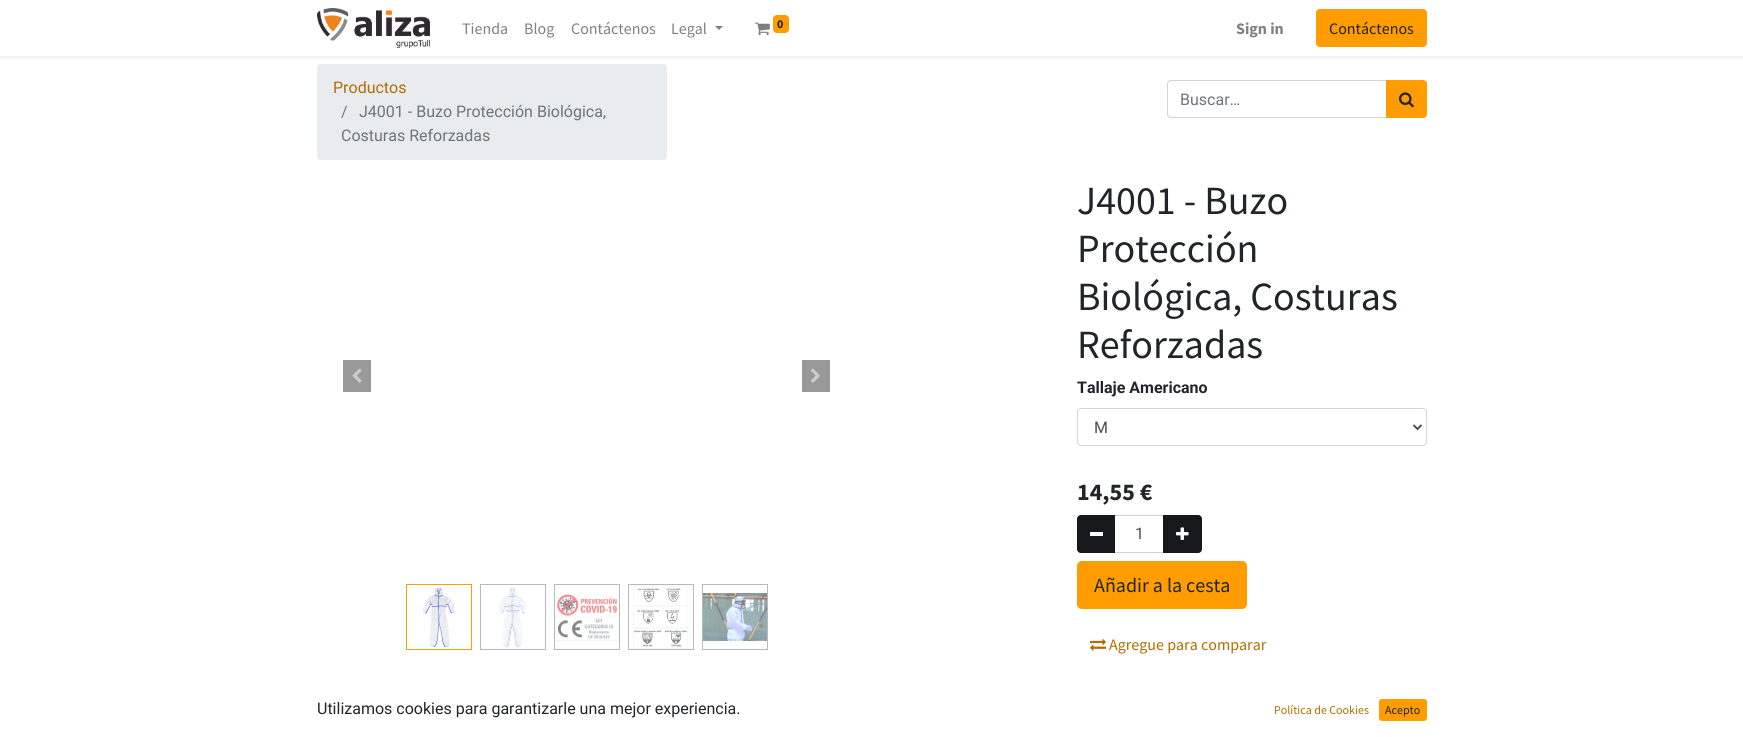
import math
import cairocffi as cairo

surface = cairo.ImageSurface(cairo.FORMAT_RGB24, 1743, 737)
ctx = cairo.Context(surface)
options = cairo.FontOptions()
options.set_hint_metrics(cairo.HINT_METRICS_OFF)
options.set_hint_style(cairo.HINT_STYLE_NONE)
ctx.set_font_options(options)
ctx.set_miter_limit(4)


def rgb(r, g, b):
    ctx.set_source_rgb(r / 255, g / 255, b / 255)


def face(family, size, italic, bold):
    ctx.select_font_face(family, cairo.FONT_SLANT_ITALIC if italic else cairo.FONT_SLANT_NORMAL, cairo.FONT_WEIGHT_BOLD if bold else cairo.FONT_WEIGHT_NORMAL)
    ctx.set_font_size(size)


def label(x, y, s):
    ctx.move_to(x, y)
    ctx.show_text(s)


def rect(x, y, w, h):
    ctx.rectangle(x, y, w, h)
    ctx.fill()


def rrect(x, y, w, h, r):
    ctx.new_sub_path()
    for i, (u, v) in enumerate([(x + w - r, y + h - r), (x + r, y + h - r), (x + r, y + r), (x + w - r, y + r)]):
        ctx.arc(u, v, r, i * math.pi / 2, (i + 1) * math.pi / 2)
    ctx.close_path()


def soft_shadow(x, y, w, h, r, blur, alpha):
    ctx.push_group_with_content(cairo.CONTENT_ALPHA)
    ctx.set_operator(cairo.OPERATOR_SOURCE)
    for i in range(15, -16, -2):
        e = blur * i / 6
        if min(w, h) + 2 * e > 0:
            ctx.set_source_rgba(0, 0, 0, alpha * math.erfc((i - 1) / 8.5) / 2)
            rrect(x - e, y - e, w + 2 * e, h + 2 * e, max(0, min(r + e + blur * .6, min(w, h) / 2 + e)))
            ctx.fill()
    ctx.mask(ctx.pop_group())


def image(path, x, y, w, h):
    ctx.save()
    ctx.set_source_surface(cairo.ImageSurface.create_from_png(path), x, y)
    ctx.rectangle(x, y, w, h)
    ctx.fill()
    ctx.restore()


rgb(255, 255, 255)
ctx.paint()
rgb(233, 236, 239)
rrect(317, 64, 350, 96, 4)
ctx.fill()
ctx.save()
ctx.rectangle(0, 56, 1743, 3)
ctx.clip()
rgb(0, 0, 0)
soft_shadow(0, 2, 1743, 56, 0, 2, 0.07)
ctx.restore()
image('image0.png', 317, 8, 113, 40)
face('Source Sans Pro', 16, 0, 0)
rgb(128, 128, 128)
label(462, 34, 'Tienda')
label(524, 34, 'Blog')
label(571, 34, 'Contáctenos')
label(671, 34, 'Legal')
ctx.new_path()
ctx.move_to(715, 26)
ctx.line_to(723, 26)
ctx.line_to(719, 30)
ctx.close_path()
ctx.fill()
image('image1.png', 755, 22, 15, 14)
rgb(255, 156, 0)
rrect(773, 15, 16, 18, 4)
ctx.fill()
face('Source Sans Pro', 12, 0, 1)
rgb(33, 37, 41)
label(777, 28, '0')
face('Source Sans Pro', 16, 0, 1)
rgb(128, 128, 128)
label(1236, 34, 'Sign in')
rgb(255, 156, 0)
rrect(1316.5, 9.5, 110, 37, 3.5)
ctx.fill_preserve()
ctx.set_line_width(1)
ctx.stroke()
face('Source Sans Pro', 16, 0, 0)
rgb(33, 37, 41)
label(1329, 34, 'Contáctenos')
face('Roboto', 16, 0, 0)
rgb(179, 109, 0)
label(333, 93, 'Productos')
rgb(108, 117, 125)
label(341, 117, '/')
label(359, 117, 'J4001 - Buzo Protección Biológica,')
label(341, 141, 'Costuras Reforzadas')
ctx.new_path()
ctx.move_to(1171, 80.5)
ctx.line_to(1386.5, 80.5)
ctx.line_to(1386.5, 117.5)
ctx.line_to(1171, 117.5)
ctx.curve_to(1169, 117.5, 1167.5, 116, 1167.5, 114)
ctx.line_to(1167.5, 84)
ctx.curve_to(1167.5, 82, 1169, 80.5, 1171, 80.5)
ctx.close_path()
rgb(206, 212, 218)
ctx.stroke()
rgb(108, 117, 125)
label(1180, 105, 'Buscar…')
rgb(255, 156, 0)
ctx.new_path()
ctx.move_to(1386.5, 80.5)
ctx.line_to(1423, 80.5)
ctx.curve_to(1425, 80.5, 1426.5, 82, 1426.5, 84)
ctx.line_to(1426.5, 114)
ctx.curve_to(1426.5, 116, 1425, 117.5, 1423, 117.5)
ctx.line_to(1386.5, 117.5)
ctx.close_path()
ctx.fill_preserve()
ctx.stroke()
image('image2.png', 1399, 92, 15, 16)
rgb(153, 153, 153)
rect(343, 360, 28, 32)
image('image3.png', 352, 368, 10, 15)
rect(802, 360, 28, 32)
image('image4.png', 810, 368, 10, 15)
ctx.rectangle(406.5, 584.5, 65, 65)
rgb(255, 156, 0)
ctx.stroke()
image('image5.png', 423, 585, 32, 64)
ctx.rectangle(480.5, 584.5, 65, 65)
rgb(182, 186, 190)
ctx.stroke()
image('image6.png', 498, 587, 29, 60)
ctx.rectangle(554.5, 584.5, 65, 65)
ctx.stroke()
image('image7.png', 555, 593, 64, 48)
ctx.rectangle(628.5, 584.5, 65, 65)
ctx.stroke()
image('image8.png', 633, 585, 55, 64)
ctx.rectangle(702.5, 584.5, 65, 65)
ctx.stroke()
image('image9.png', 703, 593, 64, 48)
face('Source Sans Pro', 40, 0, 0)
rgb(33, 37, 41)
label(1077, 214, 'J4001 - Buzo')
label(1077, 262, 'Protección')
label(1077, 310, 'Biológica, Costuras')
label(1077, 358, 'Reforzadas')
face('Roboto', 16, 0, 1)
label(1077, 393, 'Tallaje Americano')
rrect(1077.5, 408.5, 349, 37, 3.5)
rgb(206, 212, 218)
ctx.stroke()
ctx.new_path()
ctx.move_to(1413.5, 425)
ctx.line_to(1417.5, 429)
ctx.line_to(1421.5, 425)
rgb(73, 80, 87)
ctx.set_line_width(2)
ctx.stroke()
face('Roboto', 16, 0, 0)
label(1094, 433, 'M')
face('Source Sans Pro', 24, 0, 1)
rgb(33, 37, 41)
label(1077, 500, '14,55 €')
ctx.rectangle(1114.5, 515.5, 49, 37)
rgb(206, 212, 218)
ctx.set_line_width(1)
ctx.stroke()
rgb(22, 24, 27)
ctx.new_path()
ctx.move_to(1081, 515.5)
ctx.line_to(1114.5, 515.5)
ctx.line_to(1114.5, 552.5)
ctx.line_to(1081, 552.5)
ctx.curve_to(1079, 552.5, 1077.5, 551, 1077.5, 549)
ctx.line_to(1077.5, 519)
ctx.curve_to(1077.5, 517, 1079, 515.5, 1081, 515.5)
ctx.close_path()
ctx.fill_preserve()
ctx.stroke()
rgb(255, 255, 255)
rect(1090, 532, 13, 4)
face('Roboto', 16, 0, 0)
rgb(73, 80, 87)
label(1135, 539, '1')
rgb(22, 24, 27)
ctx.new_path()
ctx.move_to(1163.5, 515.5)
ctx.line_to(1198, 515.5)
ctx.curve_to(1200, 515.5, 1201.5, 517, 1201.5, 519)
ctx.line_to(1201.5, 549)
ctx.curve_to(1201.5, 551, 1200, 552.5, 1198, 552.5)
ctx.line_to(1163.5, 552.5)
ctx.close_path()
ctx.fill_preserve()
ctx.stroke()
image('image10.png', 1176, 527, 13, 13)
rgb(255, 156, 0)
rrect(1077.5, 561.5, 169, 47, 4.5)
ctx.fill_preserve()
ctx.stroke()
face('Source Sans Pro', 20, 0, 0)
rgb(33, 37, 41)
label(1094, 592, 'Añadir a la cesta')
image('image11.png', 1090, 638, 16, 13)
face('Source Sans Pro', 16, 0, 0)
rgb(179, 109, 0)
label(1109, 650, 'Agregue para comparar')
face('Roboto', 16, 0, 0)
rgb(33, 37, 41)
label(317, 714, 'Utilizamos cookies para garantizarle una mejor experiencia.')
face('Source Sans Pro', 12, 0, 0)
rgb(179, 109, 0)
label(1274, 714, 'Política de Cookies')
rgb(255, 156, 0)
rrect(1379.5, 699.5, 47, 21, 2.5)
ctx.fill_preserve()
ctx.stroke()
rgb(33, 37, 41)
label(1385, 714, 'Acepto')
surface.write_to_png('render.png')
